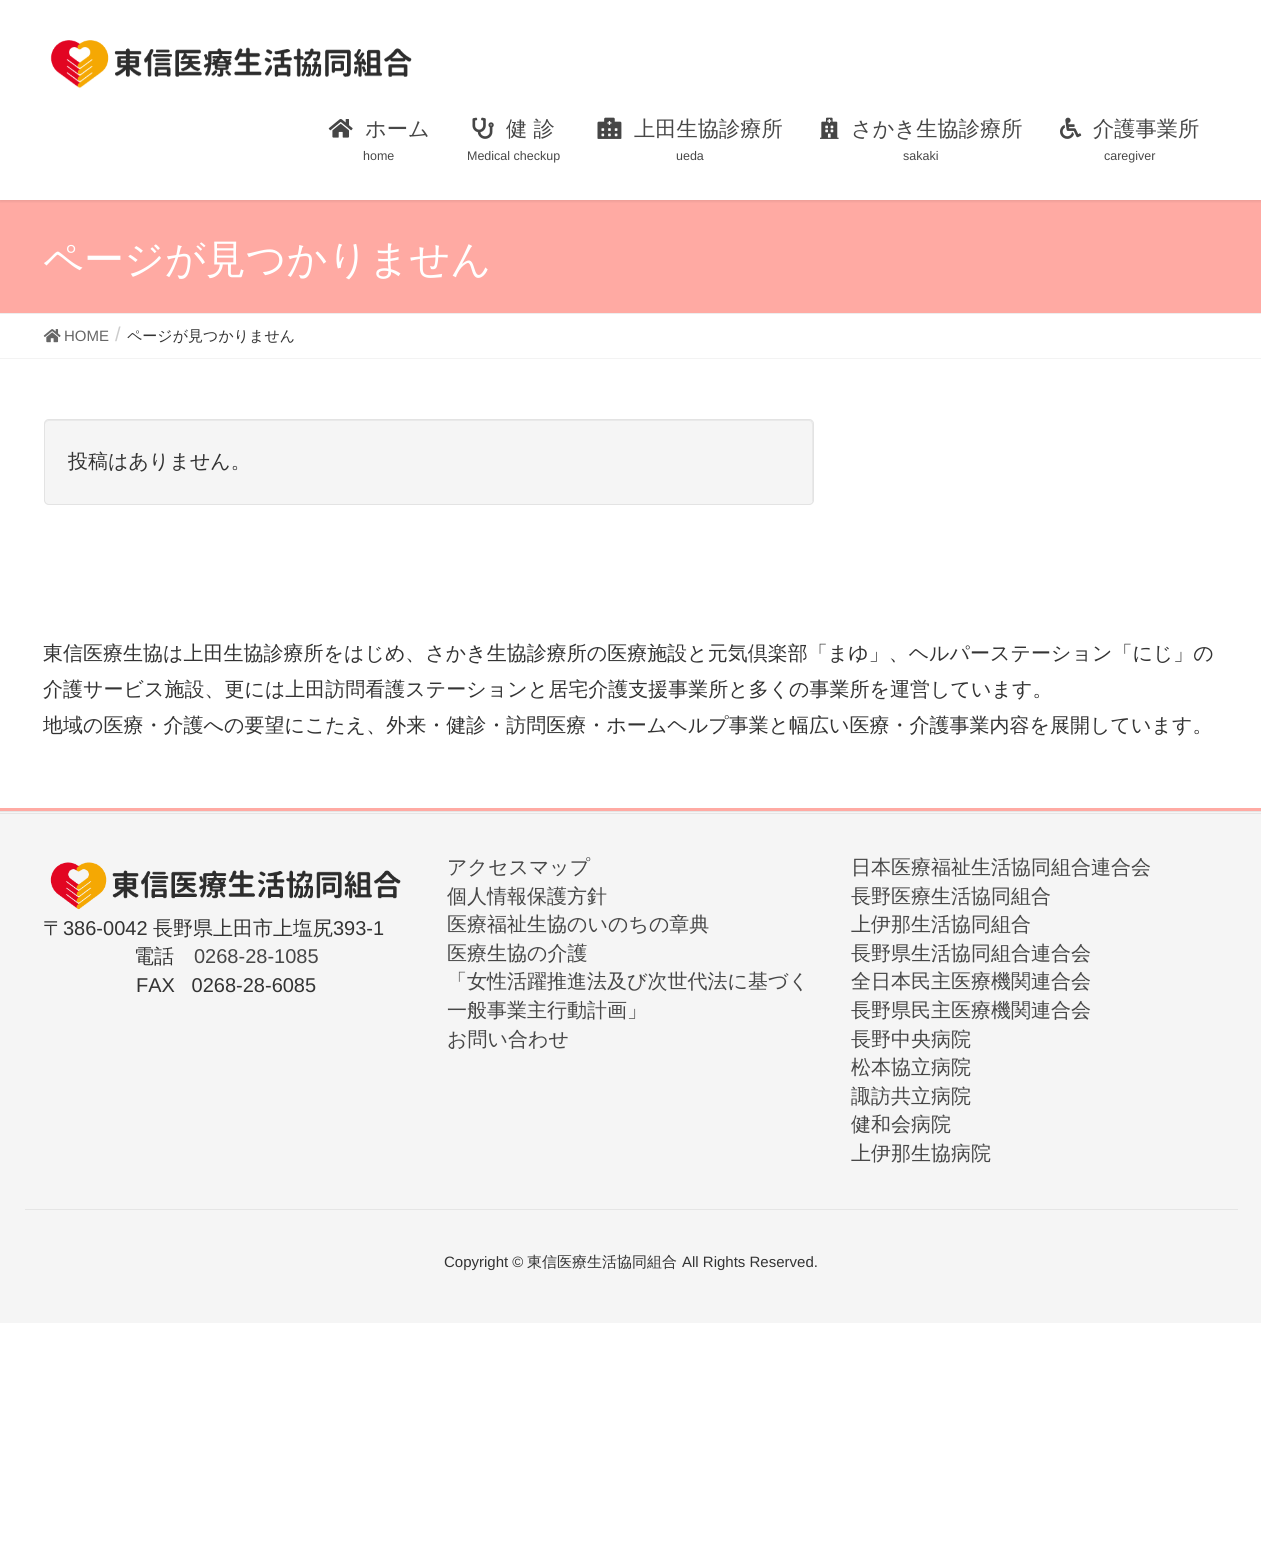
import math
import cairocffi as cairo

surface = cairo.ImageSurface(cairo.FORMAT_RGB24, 1261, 1557)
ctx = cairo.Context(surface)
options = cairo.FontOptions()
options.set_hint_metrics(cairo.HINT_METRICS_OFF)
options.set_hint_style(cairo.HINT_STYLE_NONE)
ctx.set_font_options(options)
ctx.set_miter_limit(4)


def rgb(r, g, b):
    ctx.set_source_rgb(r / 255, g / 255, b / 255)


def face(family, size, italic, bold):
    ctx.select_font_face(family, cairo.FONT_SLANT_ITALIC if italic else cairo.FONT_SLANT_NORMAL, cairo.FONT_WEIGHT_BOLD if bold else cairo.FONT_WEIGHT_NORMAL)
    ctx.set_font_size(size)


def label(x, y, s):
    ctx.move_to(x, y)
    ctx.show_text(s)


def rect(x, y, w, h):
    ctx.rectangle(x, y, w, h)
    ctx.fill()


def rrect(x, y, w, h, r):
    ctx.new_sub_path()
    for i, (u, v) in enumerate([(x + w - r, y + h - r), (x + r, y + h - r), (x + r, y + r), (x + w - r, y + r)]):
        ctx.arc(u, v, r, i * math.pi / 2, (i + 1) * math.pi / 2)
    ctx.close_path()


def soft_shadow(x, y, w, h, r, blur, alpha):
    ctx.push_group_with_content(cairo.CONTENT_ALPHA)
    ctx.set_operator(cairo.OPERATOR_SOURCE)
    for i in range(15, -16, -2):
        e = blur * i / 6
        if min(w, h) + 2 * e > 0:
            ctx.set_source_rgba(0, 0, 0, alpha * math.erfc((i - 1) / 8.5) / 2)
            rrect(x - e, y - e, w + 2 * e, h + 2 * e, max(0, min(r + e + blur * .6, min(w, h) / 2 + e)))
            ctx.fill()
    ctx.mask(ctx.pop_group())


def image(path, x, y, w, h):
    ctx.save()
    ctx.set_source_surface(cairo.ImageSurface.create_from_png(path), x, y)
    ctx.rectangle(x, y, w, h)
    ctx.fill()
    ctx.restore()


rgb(255, 255, 255)
ctx.paint()
rgb(255, 170, 163)
rect(0, 200, 1261, 113)
ctx.save()
ctx.rectangle(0, 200, 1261, 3)
ctx.clip()
rgb(0, 0, 0)
soft_shadow(0, 1, 1261, 200, 0, 2, 0.1)
ctx.restore()
image('image0.png', 50, 40, 362, 49)
image('image1.png', 328, 119, 25, 19)
face('WenQuanYi Zen Hei Medium', 21.25, 0, 0)
rgb(71, 71, 71)
label(365, 136, 'ホーム')
face('Liberation Sans', 12.5, 0, 0)
label(363, 160, 'home')
image('image2.png', 472, 117, 22, 22)
face('WenQuanYi Zen Hei Medium', 21.25, 0, 0)
label(506, 136, '健 診')
face('Liberation Sans', 12.5, 0, 0)
label(467, 160, 'Medical checkup')
image('image3.png', 597, 117, 25, 22)
face('WenQuanYi Zen Hei Medium', 21.25, 0, 0)
label(634, 136, '上田生協診療所')
face('Liberation Sans', 12.5, 0, 0)
label(676, 160, 'ueda')
image('image4.png', 820, 117, 19, 22)
face('WenQuanYi Zen Hei Medium', 21.25, 0, 0)
label(851, 136, 'さかき生協診療所')
face('Liberation Sans', 12.5, 0, 0)
label(903, 160, 'sakaki')
image('image5.png', 1060, 117, 22, 22)
face('WenQuanYi Zen Hei Medium', 21.25, 0, 0)
label(1093, 136, '介護事業所')
face('Liberation Sans', 12.5, 0, 0)
label(1104, 160, 'caregiver')
rgb(238, 238, 238)
rect(0, 313, 1261, 1)
face('WenQuanYi Zen Hei Medium', 40, 0, 0)
rgb(255, 255, 255)
label(43, 273, 'ページが見つかりません')
rgb(243, 243, 243)
rect(0, 358, 1261, 1)
image('image6.png', 43, 329, 18, 14)
face('Liberation Sans', 15, 0, 0)
rgb(102, 102, 102)
label(64, 341, 'HOME')
face('Liberation Sans', 20, 0, 0)
rgb(204, 204, 204)
label(115, 341, '/')
face('WenQuanYi Zen Hei Medium', 15, 0, 0)
rgb(51, 51, 51)
label(127, 341, 'ページが見つかりません')
rgb(245, 245, 245)
rrect(44, 419, 770, 86, 5)
ctx.fill()
rgb(233, 233, 233)
ctx.new_path()
ctx.move_to(49, 421)
ctx.line_to(809, 421)
ctx.curve_to(811, 421, 812, 423, 812, 425)
ctx.line_to(812, 501)
ctx.line_to(812, 503)
ctx.curve_to(812, 502, 813, 501, 813, 500)
ctx.line_to(813, 424)
ctx.curve_to(813, 422, 811, 420, 809, 420)
ctx.line_to(49, 420)
ctx.curve_to(47, 420, 45, 422, 45, 424)
ctx.line_to(45, 425)
ctx.curve_to(45, 423, 47, 421, 49, 421)
ctx.close_path()
ctx.fill()
rrect(44.5, 419.5, 769, 85, 4.5)
rgb(227, 227, 227)
ctx.set_line_width(1)
ctx.stroke()
face('WenQuanYi Zen Hei Medium', 20, 0, 0)
rgb(51, 51, 51)
label(68, 468, '投稿はありません。')
label(43, 660, '東信医療生協は上田生協診療所をはじめ、さかき生協診療所の医療施設と元気倶楽部「まゆ」、ヘルパーステーション「にじ」の')
label(43, 696, '介護サービス施設、更には上田訪問看護ステーションと居宅介護支援事業所と多くの事業所を運営しています。')
label(43, 732, '地域の医療・介護への要望にこたえ、外来・健診・訪問医療・ホームヘルプ事業と幅広い医療・介護事業内容を展開しています。')
rgb(245, 245, 245)
rect(0, 812, 1261, 511)
rgb(255, 170, 163)
rect(0, 808, 1261, 3)
rgb(229, 229, 229)
rect(0, 811, 1261, 1)
rect(0, 813, 1261, 1)
image('image7.png', 50, 862, 351, 48)
rgb(51, 51, 51)
label(43, 935, '〒')
face('Liberation Sans', 20, 0, 0)
label(63, 935, '386-0042')
face('WenQuanYi Zen Hei Medium', 20, 0, 0)
label(153, 935, '長野県上田市上塩尻')
face('Liberation Sans', 20, 0, 0)
label(333, 935, '393-1')
face('WenQuanYi Zen Hei Medium', 20, 0, 0)
label(134, 963, '電話')
face('Liberation Sans', 20, 0, 0)
rgb(71, 71, 71)
label(194, 963, '0268-28-1085')
rgb(51, 51, 51)
label(136, 992, 'FAX   0268-28-6085')
face('WenQuanYi Zen Hei Medium', 20, 0, 0)
rgb(71, 71, 71)
label(447, 874, 'アクセスマップ')
label(447, 903, '個人情報保護方針')
label(447, 931, '医療福祉生協のいのちの章典')
label(447, 960, '医療生協の介護')
label(447, 988, '「女性活躍推進法及び次世代法に基づく')
label(447, 1017, '一般事業主行動計画」')
label(447, 1046, 'お問い合わせ')
label(851, 874, '日本医療福祉生活協同組合連合会')
label(851, 903, '長野医療生活協同組合')
label(851, 931, '上伊那生活協同組合')
label(851, 960, '長野県生活協同組合連合会')
label(851, 988, '全日本民主医療機関連合会')
label(851, 1017, '長野県民主医療機関連合会')
label(851, 1046, '長野中央病院')
label(851, 1074, '松本協立病院')
label(851, 1103, '諏訪共立病院')
label(851, 1131, '健和会病院')
label(851, 1160, '上伊那生協病院')
rgb(229, 229, 229)
rect(25, 1209, 1213, 1)
face('Liberation Sans', 15, 0, 0)
rgb(51, 51, 51)
label(444, 1267, 'Copyright ©')
face('WenQuanYi Zen Hei Medium', 15, 0, 0)
label(527, 1267, '東信医療生活協同組合')
face('Liberation Sans', 15, 0, 0)
label(682, 1267, 'All Rights Reserved.')
surface.write_to_png('render.png')
